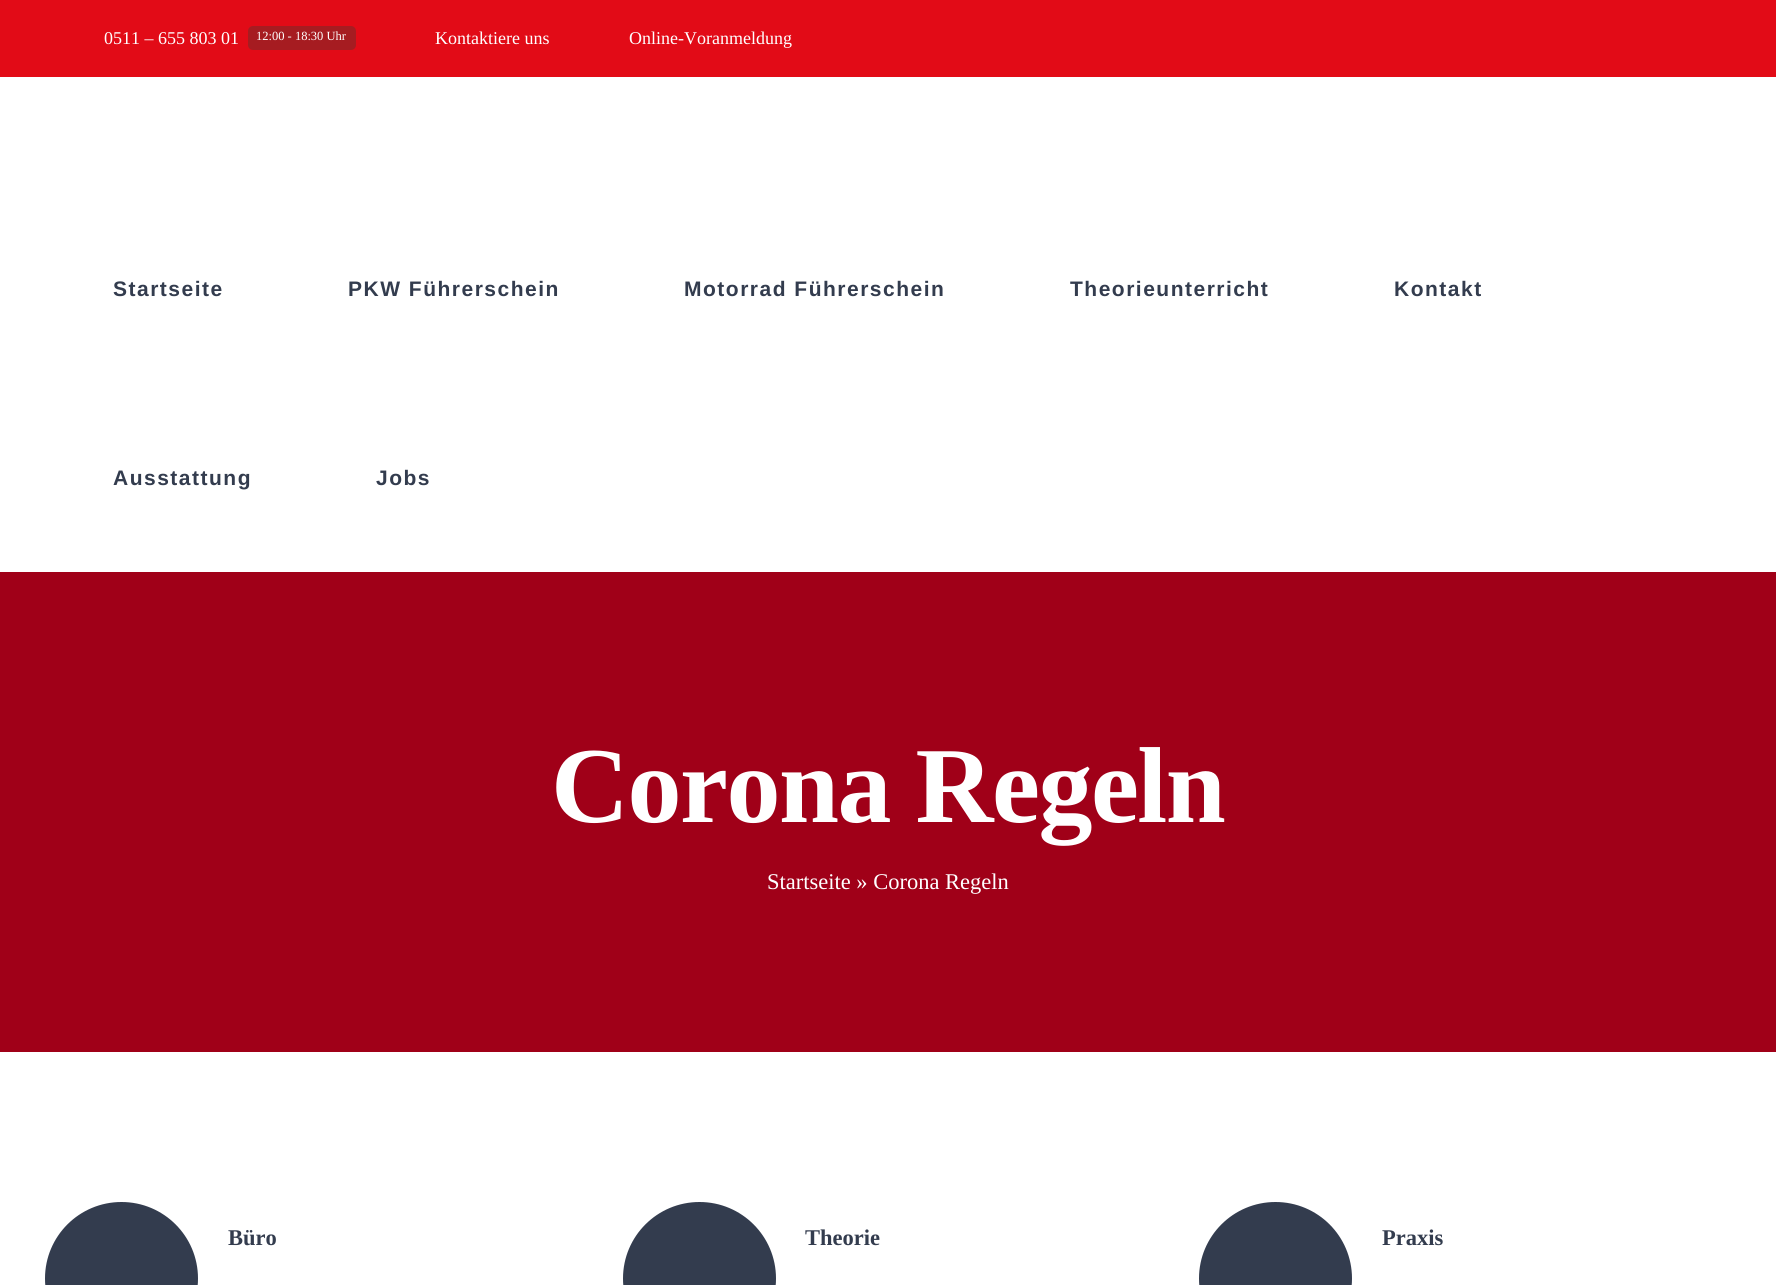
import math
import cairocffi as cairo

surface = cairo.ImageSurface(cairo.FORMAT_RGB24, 1776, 1285)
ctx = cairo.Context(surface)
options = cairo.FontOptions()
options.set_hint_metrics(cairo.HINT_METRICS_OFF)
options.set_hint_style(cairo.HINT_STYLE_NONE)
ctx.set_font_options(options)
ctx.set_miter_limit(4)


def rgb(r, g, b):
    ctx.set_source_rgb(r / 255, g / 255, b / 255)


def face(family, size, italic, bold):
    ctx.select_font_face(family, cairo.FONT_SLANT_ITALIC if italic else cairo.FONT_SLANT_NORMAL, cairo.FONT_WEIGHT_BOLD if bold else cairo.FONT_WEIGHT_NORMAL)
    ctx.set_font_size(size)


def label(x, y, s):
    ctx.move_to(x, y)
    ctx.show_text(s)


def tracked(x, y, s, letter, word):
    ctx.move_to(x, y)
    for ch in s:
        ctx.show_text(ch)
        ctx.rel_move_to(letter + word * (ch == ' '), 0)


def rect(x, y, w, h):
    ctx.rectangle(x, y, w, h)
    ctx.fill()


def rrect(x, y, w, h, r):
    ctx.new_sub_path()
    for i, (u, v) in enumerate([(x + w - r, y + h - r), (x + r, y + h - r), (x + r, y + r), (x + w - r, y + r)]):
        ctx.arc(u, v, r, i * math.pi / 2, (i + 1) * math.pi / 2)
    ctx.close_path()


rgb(255, 255, 255)
ctx.paint()
rgb(226, 11, 23)
rect(0, 0, 1776, 77)
face('Liberation Serif', 18, 0, 0)
rgb(255, 255, 255)
label(104, 44, '0511 – 655 803 01')
rgb(166, 28, 33)
rrect(248, 26, 108, 24, 5)
ctx.fill()
face('Liberation Serif', 12.5, 0, 0)
rgb(255, 255, 255)
label(256, 40, '12:00 - 18:30 Uhr')
face('Liberation Serif', 18, 0, 0)
label(435, 44, 'Kontaktiere uns')
label(629, 44, 'Online-Voranmeldung')
face('Liberation Sans', 21, 0, 1)
rgb(51, 60, 78)
tracked(113, 296, 'Startseite', 1.5, 0)
tracked(348, 296, 'PKW Führerschein', 1.5, 0)
tracked(684, 296, 'Motorrad Führerschein', 1.5, 0)
tracked(1070, 296, 'Theorieunterricht', 1.5, 0)
tracked(1394, 296, 'Kontakt', 1.5, 0)
tracked(113, 485, 'Ausstattung', 1.5, 0)
tracked(376, 485, 'Jobs', 1.5, 0)
rgb(160, 0, 24)
rect(0, 572, 1776, 480)
face('Liberation Serif', 108, 0, 1)
rgb(255, 255, 255)
tracked(551, 822, 'Corona Regeln', -1.5, 0)
face('Liberation Serif', 22.5, 0, 0)
label(767, 889, 'Startseite » Corona Regeln')
rgb(51, 60, 78)
ctx.new_path()
ctx.arc(121.5, 1278.5, 75.5, 0, 2 * math.pi)
ctx.fill_preserve()
ctx.stroke()
face('Liberation Serif', 22.5, 0, 1)
label(228, 1245, 'Büro')
ctx.new_path()
ctx.arc(699.5, 1278.5, 75.5, 0, 2 * math.pi)
ctx.fill_preserve()
ctx.stroke()
label(805, 1245, 'Theorie')
ctx.new_path()
ctx.arc(1275.5, 1278.5, 75.5, 0, 2 * math.pi)
ctx.fill_preserve()
ctx.stroke()
label(1382, 1245, 'Praxis')
surface.write_to_png('render.png')
